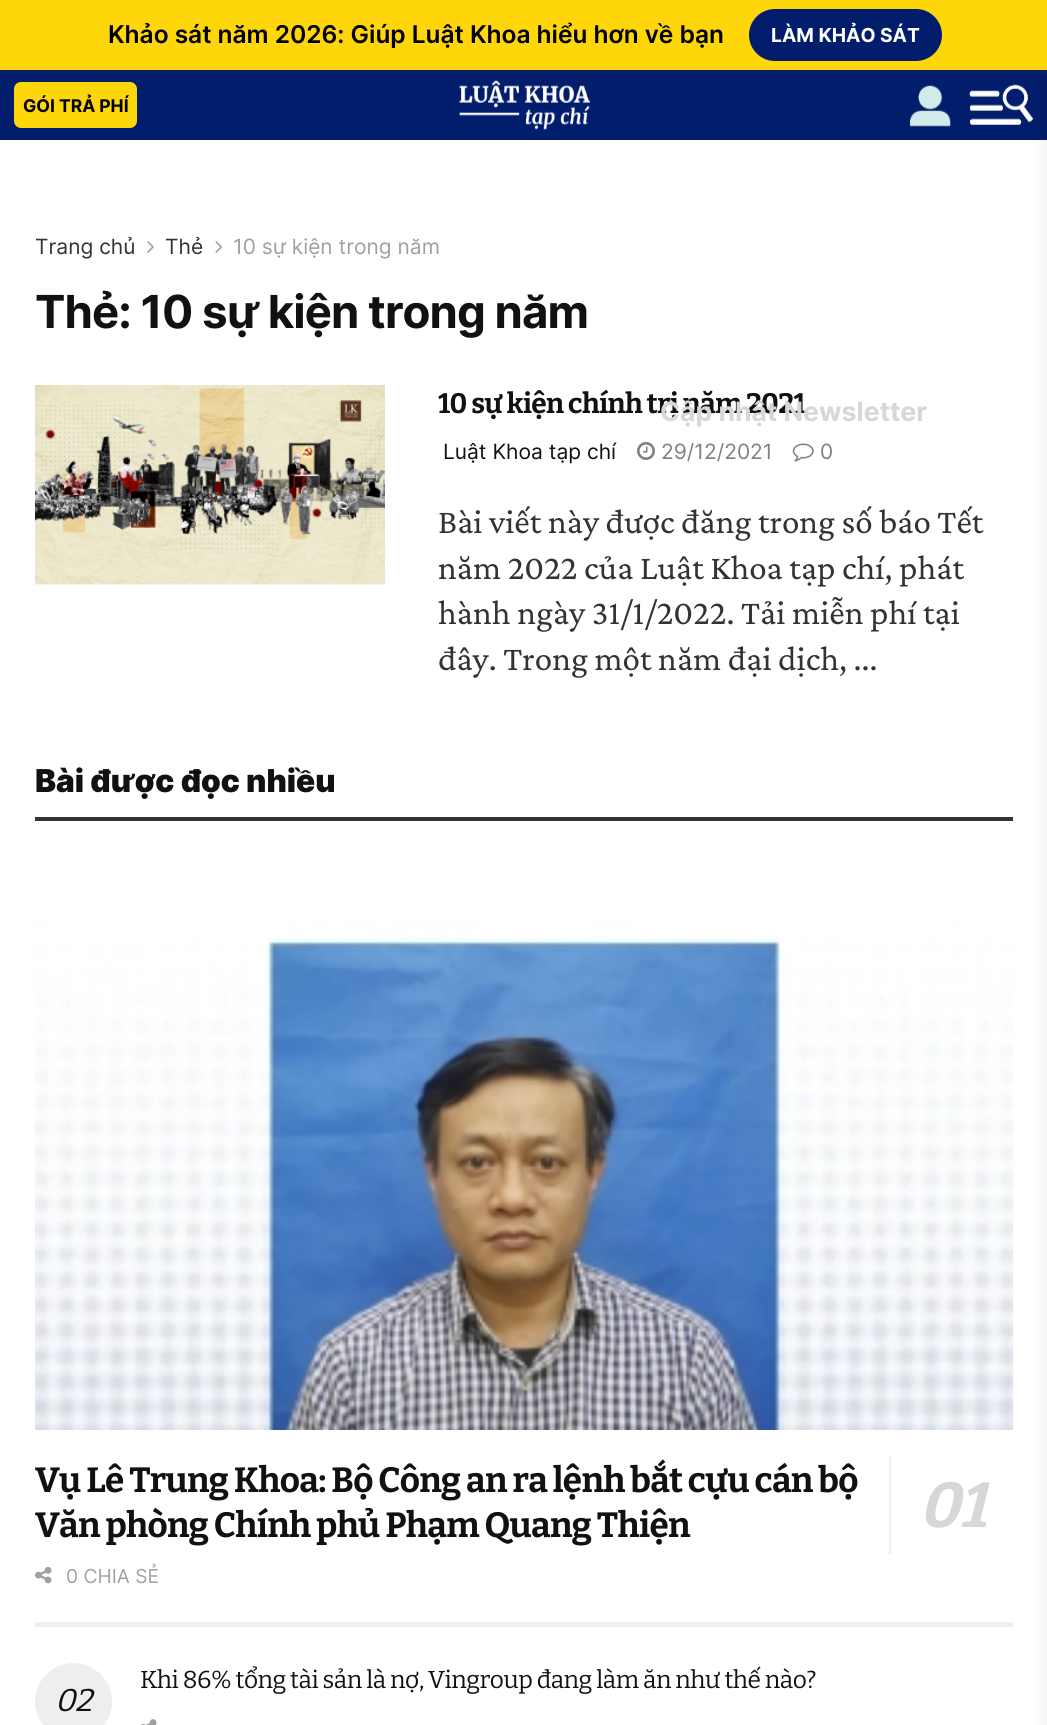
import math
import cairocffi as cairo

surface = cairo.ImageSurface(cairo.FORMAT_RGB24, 1047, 1725)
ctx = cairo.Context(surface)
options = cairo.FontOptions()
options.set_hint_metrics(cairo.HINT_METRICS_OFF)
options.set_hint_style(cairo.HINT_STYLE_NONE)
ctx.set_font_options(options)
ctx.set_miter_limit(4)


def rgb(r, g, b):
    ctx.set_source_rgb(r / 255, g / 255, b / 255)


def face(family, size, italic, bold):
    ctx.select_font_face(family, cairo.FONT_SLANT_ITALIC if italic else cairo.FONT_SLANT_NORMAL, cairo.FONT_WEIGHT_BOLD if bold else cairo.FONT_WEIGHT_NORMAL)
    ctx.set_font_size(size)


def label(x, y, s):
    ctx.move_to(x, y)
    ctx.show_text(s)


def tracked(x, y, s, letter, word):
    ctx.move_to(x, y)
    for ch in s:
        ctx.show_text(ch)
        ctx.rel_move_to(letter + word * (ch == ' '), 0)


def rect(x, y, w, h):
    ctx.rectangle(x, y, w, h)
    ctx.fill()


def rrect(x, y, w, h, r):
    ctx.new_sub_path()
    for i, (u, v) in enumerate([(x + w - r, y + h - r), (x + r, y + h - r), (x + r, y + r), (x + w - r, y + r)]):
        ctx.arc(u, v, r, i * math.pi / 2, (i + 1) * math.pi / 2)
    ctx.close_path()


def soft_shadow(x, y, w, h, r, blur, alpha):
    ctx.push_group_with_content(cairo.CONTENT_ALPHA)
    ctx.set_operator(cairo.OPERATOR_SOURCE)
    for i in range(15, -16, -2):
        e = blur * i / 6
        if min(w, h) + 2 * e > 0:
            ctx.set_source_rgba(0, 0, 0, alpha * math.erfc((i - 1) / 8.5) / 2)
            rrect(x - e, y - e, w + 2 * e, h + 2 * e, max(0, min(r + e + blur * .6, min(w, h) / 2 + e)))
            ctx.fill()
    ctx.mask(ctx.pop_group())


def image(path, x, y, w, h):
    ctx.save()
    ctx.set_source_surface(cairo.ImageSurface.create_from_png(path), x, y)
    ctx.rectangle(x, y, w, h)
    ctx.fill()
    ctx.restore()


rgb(255, 255, 255)
ctx.paint()
rgb(3, 29, 109)
rect(0, 70, 1047, 70)
image('image2.png', 969, 84, 64, 41)
rgb(0, 0, 0)
soft_shadow(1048, 4, 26, 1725, 0, 9, 0.1)
rgb(255, 214, 10)
rect(0, 0, 1047, 70)
face('Inter SemiBold', 24.5, 0, 0)
rgb(0, 0, 0)
label(108, 43, 'Khảo sát năm 2026: Giúp Luật Khoa hiểu hơn về bạn')
rgb(3, 29, 109)
rrect(749, 9, 193, 52, 26)
ctx.fill()
face('Inter', 19.25, 0, 1)
rgb(255, 255, 255)
label(771, 42, 'LÀM KHẢO SÁT')
rgb(255, 214, 10)
rrect(14, 82, 123, 46, 7)
ctx.fill()
face('Inter', 17.5, 0, 1)
rgb(0, 0, 0)
label(23, 112, 'GÓI TRẢ PHÍ')
image('image0.png', 459, 80, 131, 50)
image('image1.png', 910, 85, 41, 42)
face('Inter', 21, 0, 0)
rgb(51, 51, 51)
label(35, 254, 'Trang chủ')
image('image3.png', 147, 241, 7, 12)
label(165, 254, 'Thẻ')
image('image4.png', 215, 241, 8, 12)
rgb(160, 160, 160)
label(233, 254, '10 sự kiện trong năm')
face('Inter', 45.5, 0, 1)
rgb(17, 17, 17)
tracked(35, 328, 'Thẻ: 10 sự kiện trong năm', -0.9, 0)
rgb(247, 247, 247)
rect(35, 584, 350, 1)
image('image5.png', 35, 385, 350, 200)
face('Bitter', 28, 0, 1)
rgb(17, 17, 17)
tracked(438, 413, '10 sự kiện chính trị năm 2021', -0.55, 0)
face('Inter', 21, 0, 0)
label(443, 459, 'Luật Khoa tạp chí')
image('image6.png', 637, 442, 18, 18)
rgb(128, 128, 128)
label(661, 459, '29/12/2021')
image('image7.png', 792, 443, 22, 19)
label(820, 459, '0')
face('Crimson Pro', 35, 0, 0)
rgb(51, 51, 51)
label(438, 533, 'Bài viết này được đăng trong số báo Tết')
label(438, 579, 'năm 2022 của Luật Khoa tạp chí, phát')
label(438, 624, 'hành ngày 31/1/2022. Tải miễn phí tại')
label(438, 670, 'đây. Trong một năm đại dịch, ...')
rect(35, 817, 978, 4)
face('Inter Black', 31.5, 0, 0)
rgb(17, 17, 17)
label(35, 792, 'Bài được đọc nhiều')
rgb(238, 238, 238)
rect(35, 1622, 978, 5)
image('image8.png', 35, 873, 979, 557)
face('Bitter', 35, 0, 1)
rgb(17, 17, 17)
tracked(35, 1492, 'Vụ Lê Trung Khoa: Bộ Công an ra lệnh bắt cựu cán bộ', -0.7, 0)
rgb(238, 238, 238)
rect(889, 1456, 2, 98)
face('Bitter', 63, 1, 1)
rgb(215, 215, 215)
tracked(919, 1527, '01', -0.7, 0)
face('Bitter', 35, 0, 1)
rgb(17, 17, 17)
tracked(35, 1537, 'Văn phòng Chính phủ Phạm Quang Thiện', -0.7, 0)
image('image9.png', 35, 1566, 17, 18)
face('Inter', 19.25, 0, 0)
rgb(160, 160, 160)
label(66, 1583, '0 CHIA SẺ')
face('Bitter', 24.5, 0, 0)
rgb(17, 17, 17)
tracked(140, 1688, 'Khi 86% tổng tài sản là nợ, Vingroup đang làm ăn như thế nào?', -0.5, 0)
rgb(238, 238, 238)
ctx.new_path()
ctx.arc(73.5, 1701.5, 38.5, 0, 2 * math.pi)
ctx.fill()
face('Bitter', 31.5, 1, 0)
rgb(17, 17, 17)
tracked(55, 1711, '02', -0.5, 0)
image('image10.png', 141, 1719, 16, 6)
face('Inter', 26.6, 0, 1)
rgb(215, 215, 215)
label(660, 421, 'Cập nhật Newsletter')
surface.write_to_png('render.png')
